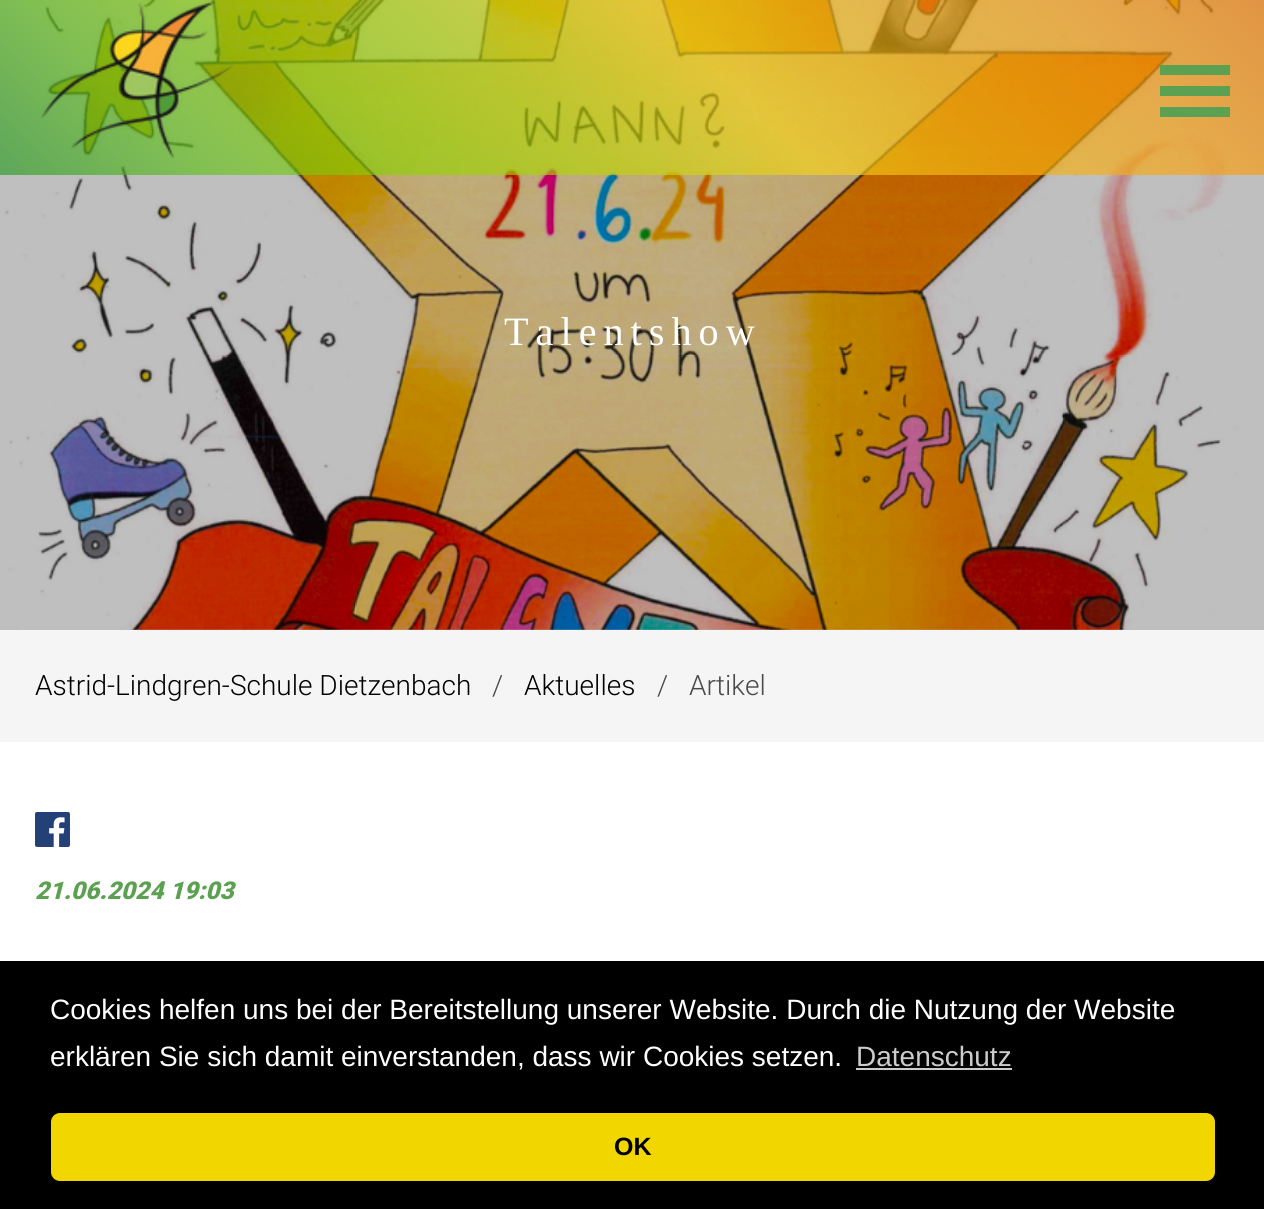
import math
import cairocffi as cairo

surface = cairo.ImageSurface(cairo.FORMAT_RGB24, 1264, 1209)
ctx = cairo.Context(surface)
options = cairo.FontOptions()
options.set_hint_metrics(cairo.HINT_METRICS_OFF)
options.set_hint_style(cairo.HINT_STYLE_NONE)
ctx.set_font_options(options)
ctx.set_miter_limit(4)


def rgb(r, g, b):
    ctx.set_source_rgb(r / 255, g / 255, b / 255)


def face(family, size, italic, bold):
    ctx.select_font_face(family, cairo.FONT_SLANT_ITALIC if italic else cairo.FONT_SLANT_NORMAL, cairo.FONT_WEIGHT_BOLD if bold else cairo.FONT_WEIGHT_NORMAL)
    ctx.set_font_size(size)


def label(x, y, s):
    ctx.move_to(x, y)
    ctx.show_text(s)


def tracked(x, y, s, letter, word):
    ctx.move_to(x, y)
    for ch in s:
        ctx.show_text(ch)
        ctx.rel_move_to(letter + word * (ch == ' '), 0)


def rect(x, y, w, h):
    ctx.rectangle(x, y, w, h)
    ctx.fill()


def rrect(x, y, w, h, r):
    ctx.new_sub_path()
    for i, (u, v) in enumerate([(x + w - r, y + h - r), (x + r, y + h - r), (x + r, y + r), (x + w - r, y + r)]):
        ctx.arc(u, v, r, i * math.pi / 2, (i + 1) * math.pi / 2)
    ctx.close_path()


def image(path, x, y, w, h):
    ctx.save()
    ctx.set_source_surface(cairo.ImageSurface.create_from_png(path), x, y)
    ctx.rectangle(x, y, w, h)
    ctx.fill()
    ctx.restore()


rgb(255, 255, 255)
ctx.paint()
rgb(191, 191, 191)
rect(0, 0, 1264, 630)
image('image1.png', 4, 0, 1236, 630)
gradient = cairo.LinearGradient(273, 448, 993, -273)
gradient.add_color_stop_rgba(0, 0.157, 0.6, 0.145, 0.65)
gradient.add_color_stop_rgba(0.14, 0.376, 0.749, 0.098, 0.65)
gradient.add_color_stop_rgba(0.29, 0.561, 0.827, 0, 0.65)
gradient.add_color_stop_rgba(0.43, 0.733, 0.831, 0.024, 0.65)
gradient.add_color_stop_rgba(0.57, 0.969, 0.831, 0.094, 0.65)
gradient.add_color_stop_rgba(0.71, 0.965, 0.71, 0.067, 0.65)
gradient.add_color_stop_rgba(0.86, 0.98, 0.62, 0.051, 0.65)
gradient.add_color_stop_rgba(1, 0.953, 0.49, 0.004, 0.65)
ctx.set_source(gradient)
rect(0, 0, 1264, 175)
image('image0.png', 40, 0, 194, 159)
rgb(92, 161, 82)
rect(1160, 65, 70, 10)
rect(1160, 86, 70, 10)
rect(1160, 107, 70, 10)
face('Liberation Serif', 40.25, 0, 0)
rgb(255, 255, 255)
tracked(504, 345, 'Talentshow', 7, 0)
rgb(245, 245, 245)
rect(0, 630, 1264, 112)
face('Roboto Light', 28, 0, 0)
rgb(0, 0, 0)
label(35, 695, 'Astrid-Lindgren-Schule Dietzenbach')
rgb(74, 74, 74)
label(492, 695, '/')
rgb(0, 0, 0)
label(524, 695, 'Aktuelles')
rgb(74, 74, 74)
label(657, 695, '/')
label(689, 695, 'Artikel')
image('image2.png', 35, 812, 35, 35)
face('Roboto Black', 24.5, 1, 0)
rgb(92, 161, 82)
label(35, 899, '21.06.2024 19:03')
rgb(0, 0, 0)
rect(0, 961, 1264, 248)
face('Liberation Sans', 28, 0, 0)
rgb(255, 255, 255)
label(50, 1019, 'Cookies helfen uns bei der Bereitstellung unserer Website. Durch die Nutzung der Website')
label(50, 1066, 'erklären Sie sich damit einverstanden, dass wir Cookies setzen.')
rgb(204, 204, 204)
label(856, 1066, 'Datenschutz')
rect(856, 1068, 156, 2)
rgb(241, 214, 0)
rrect(51, 1113, 1164, 68, 9)
ctx.fill()
face('Liberation Sans', 25, 0, 1)
rgb(0, 0, 0)
label(614, 1155, 'OK')
surface.write_to_png('render.png')
